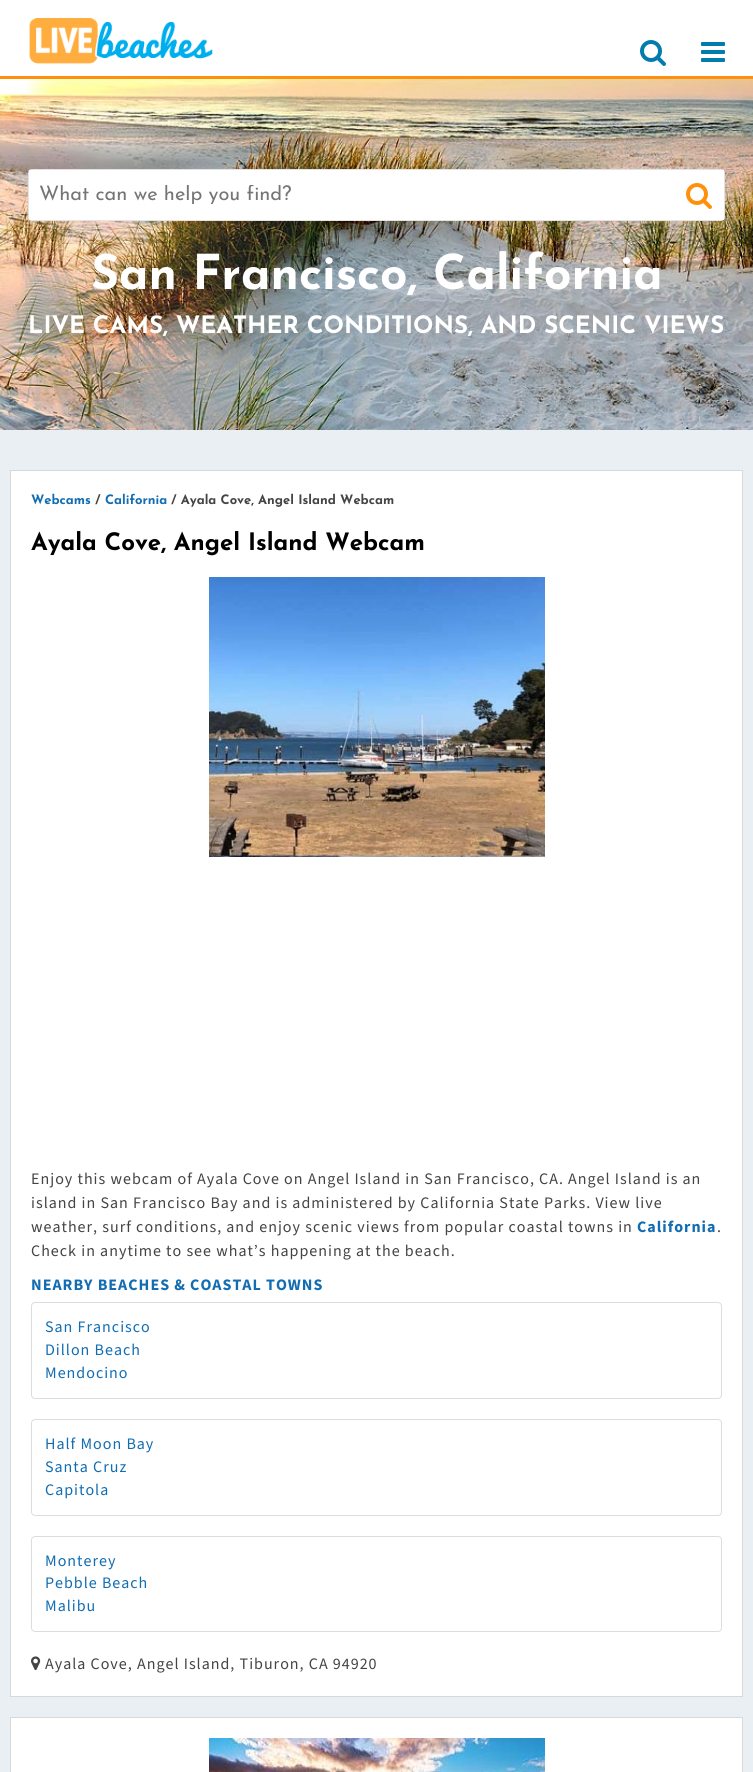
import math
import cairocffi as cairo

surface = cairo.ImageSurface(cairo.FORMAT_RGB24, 753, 1772)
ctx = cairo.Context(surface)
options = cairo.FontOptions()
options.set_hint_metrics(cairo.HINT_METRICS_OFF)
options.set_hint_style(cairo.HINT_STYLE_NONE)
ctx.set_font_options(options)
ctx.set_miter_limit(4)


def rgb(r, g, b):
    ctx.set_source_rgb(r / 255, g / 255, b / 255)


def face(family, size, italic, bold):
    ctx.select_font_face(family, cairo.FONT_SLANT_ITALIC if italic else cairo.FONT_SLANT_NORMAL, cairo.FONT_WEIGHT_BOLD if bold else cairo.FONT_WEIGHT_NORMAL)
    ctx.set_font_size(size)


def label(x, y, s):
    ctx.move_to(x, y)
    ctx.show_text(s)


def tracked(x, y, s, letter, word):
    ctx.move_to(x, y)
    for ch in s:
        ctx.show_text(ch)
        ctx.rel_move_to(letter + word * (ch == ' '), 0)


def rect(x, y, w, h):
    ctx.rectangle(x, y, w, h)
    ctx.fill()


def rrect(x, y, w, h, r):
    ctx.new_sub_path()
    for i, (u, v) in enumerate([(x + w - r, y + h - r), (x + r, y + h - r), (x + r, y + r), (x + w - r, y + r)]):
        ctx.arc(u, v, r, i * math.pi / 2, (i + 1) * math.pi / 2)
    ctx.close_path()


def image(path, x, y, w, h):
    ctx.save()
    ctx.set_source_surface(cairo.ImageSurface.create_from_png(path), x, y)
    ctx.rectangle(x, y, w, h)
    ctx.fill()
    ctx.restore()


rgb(234, 239, 243)
ctx.paint()
rgb(255, 255, 255)
rect(0, 0, 753, 76)
rgb(255, 144, 13)
rect(0, 76, 753, 3)
image('image0.png', 29, 18, 184, 46)
image('image1.png', 640, 40, 26, 26)
image('image2.png', 701, 42, 24, 20)
image('image3.png', 0, 79, 753, 351)
rrect(28.5, 169.5, 696, 51, 3.5)
rgb(227, 227, 227)
ctx.set_line_width(1)
ctx.stroke()
rgb(255, 255, 255)
rect(29, 170, 695, 50)
ctx.save()
ctx.rectangle(39, 185, 621, 20)
ctx.clip()
face('Josefin Sans', 20, 0, 0)
rgb(117, 117, 117)
label(39, 200, 'What can we help you find?')
ctx.restore()
image('image4.png', 686, 183, 26, 26)
face('Josefin Sans', 48, 0, 1)
label(91, 289, 'San Francisco, California')
face('Josefin Sans', 24, 0, 1)
label(28, 333, 'LIVE CAMS, WEATHER CONDITIONS, AND SCENIC VIEWS')
ctx.rectangle(10.5, 470.5, 732, 1226)
ctx.fill_preserve()
rgb(215, 216, 217)
ctx.stroke()
face('Josefin Sans', 13, 0, 1)
rgb(18, 109, 178)
label(31, 504, 'Webcams')
rgb(68, 68, 68)
label(95, 504, '/')
rgb(18, 109, 178)
label(105, 504, 'California')
rgb(68, 68, 68)
label(171, 504, '/ Ayala Cove, Angel Island Webcam')
face('Josefin Sans', 24, 0, 1)
rgb(0, 0, 0)
label(31, 550, 'Ayala Cove, Angel Island Webcam')
image('image5.png', 209, 577, 336, 280)
face('Source Sans 3', 16, 0, 0)
rgb(68, 68, 68)
tracked(31, 1184, 'Enjoy this webcam of Ayala Cove on Angel Island in San Francisco, CA. Angel Island is an', 1, 0)
tracked(31, 1208, 'island in San Francisco Bay and is administered by California State Parks. View live', 1, 0)
tracked(31, 1232, 'weather, surf conditions, and enjoy scenic views from popular coastal towns in', 1, 0)
face('Source Sans 3', 16, 0, 1)
rgb(18, 109, 178)
tracked(637, 1232, 'California', 1, 0)
face('Source Sans 3', 16, 0, 0)
rgb(68, 68, 68)
tracked(717, 1232, '.', 1, 0)
tracked(31, 1256, 'Check in anytime to see what’s happening at the beach.', 1, 0)
face('Source Sans 3', 16, 0, 1)
rgb(18, 109, 178)
tracked(31, 1290, 'NEARBY BEACHES & COASTAL TOWNS', 1, 0)
rrect(31.5, 1302.5, 690, 96, 3.5)
rgb(221, 221, 221)
ctx.stroke()
face('Source Sans 3', 16, 0, 0)
rgb(18, 109, 178)
tracked(45, 1332, 'San Francisco', 1, 0)
tracked(45, 1355, 'Dillon Beach', 1, 0)
tracked(45, 1378, 'Mendocino', 1, 0)
rrect(31.5, 1419.5, 690, 96, 3.5)
rgb(221, 221, 221)
ctx.stroke()
rgb(18, 109, 178)
tracked(45, 1449, 'Half Moon Bay', 1, 0)
tracked(45, 1472, 'Santa Cruz', 1, 0)
tracked(45, 1495, 'Capitola', 1, 0)
rrect(31.5, 1536.5, 690, 95, 3.5)
rgb(221, 221, 221)
ctx.stroke()
rgb(18, 109, 178)
tracked(45, 1566, 'Monterey', 1, 0)
tracked(45, 1588, 'Pebble Beach', 1, 0)
tracked(45, 1611, 'Malibu', 1, 0)
image('image6.png', 31, 1656, 10, 15)
rgb(68, 68, 68)
tracked(45, 1669, 'Ayala Cove, Angel Island, Tiburon, CA 94920', 1, 0)
rgb(255, 255, 255)
ctx.rectangle(10.5, 1717.5, 732, 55)
ctx.fill_preserve()
rgb(215, 216, 217)
ctx.stroke()
image('image7.png', 209, 1738, 336, 34)
surface.write_to_png('render.png')
